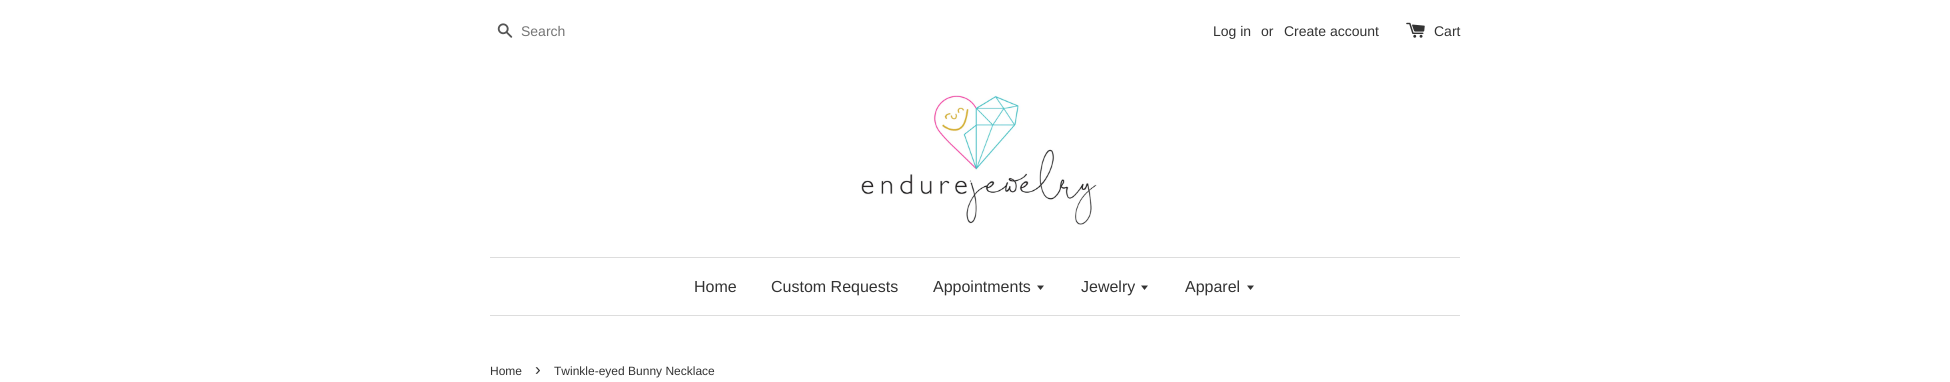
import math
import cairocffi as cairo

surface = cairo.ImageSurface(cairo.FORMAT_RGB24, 1950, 382)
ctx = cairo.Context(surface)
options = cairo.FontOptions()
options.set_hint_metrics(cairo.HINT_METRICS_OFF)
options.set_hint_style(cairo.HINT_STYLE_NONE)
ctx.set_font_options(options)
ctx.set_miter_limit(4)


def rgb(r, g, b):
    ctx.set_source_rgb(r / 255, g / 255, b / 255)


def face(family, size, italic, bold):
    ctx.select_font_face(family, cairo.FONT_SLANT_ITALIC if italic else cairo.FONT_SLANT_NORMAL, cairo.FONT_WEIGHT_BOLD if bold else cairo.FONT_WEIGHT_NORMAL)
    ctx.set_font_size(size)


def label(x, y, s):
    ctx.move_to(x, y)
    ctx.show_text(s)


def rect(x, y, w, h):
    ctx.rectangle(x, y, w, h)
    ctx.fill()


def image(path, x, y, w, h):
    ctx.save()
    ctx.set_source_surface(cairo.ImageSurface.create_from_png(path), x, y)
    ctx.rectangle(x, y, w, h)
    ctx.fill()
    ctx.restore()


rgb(255, 255, 255)
ctx.paint()
image('image0.png', 497, 23, 16, 15)
face('Liberation Sans', 14, 0, 0)
rgb(117, 117, 117)
label(521, 36, 'Search')
rgb(51, 51, 51)
label(1213, 36, 'Log in')
label(1261, 36, 'or')
label(1284, 36, 'Create account')
image('image1.png', 1406, 22, 19, 16)
label(1434, 36, 'Cart')
image('image2.png', 861, 95, 236, 130)
rgb(221, 221, 221)
rect(490, 257, 970, 1)
rect(490, 315, 970, 1)
face('Liberation Sans', 16, 0, 0)
rgb(51, 51, 51)
label(694, 292, 'Home')
label(771, 292, 'Custom Requests')
label(933, 292, 'Appointments')
ctx.new_path()
ctx.move_to(1037, 285.5)
ctx.line_to(1040.5, 290)
ctx.line_to(1044, 285.5)
ctx.close_path()
ctx.fill()
label(1081, 292, 'Jewelry')
ctx.new_path()
ctx.move_to(1141, 285.5)
ctx.line_to(1144.5, 290)
ctx.line_to(1148, 285.5)
ctx.close_path()
ctx.fill()
label(1185, 292, 'Apparel')
ctx.new_path()
ctx.move_to(1247, 285.5)
ctx.line_to(1250.5, 290)
ctx.line_to(1254, 285.5)
ctx.close_path()
ctx.fill()
face('Liberation Sans', 12, 0, 0)
label(490, 375, 'Home')
face('Liberation Sans', 17, 0, 0)
label(535, 375, '›')
face('Liberation Sans', 12, 0, 0)
label(554, 375, 'Twinkle-eyed Bunny Necklace')
surface.write_to_png('render.png')
